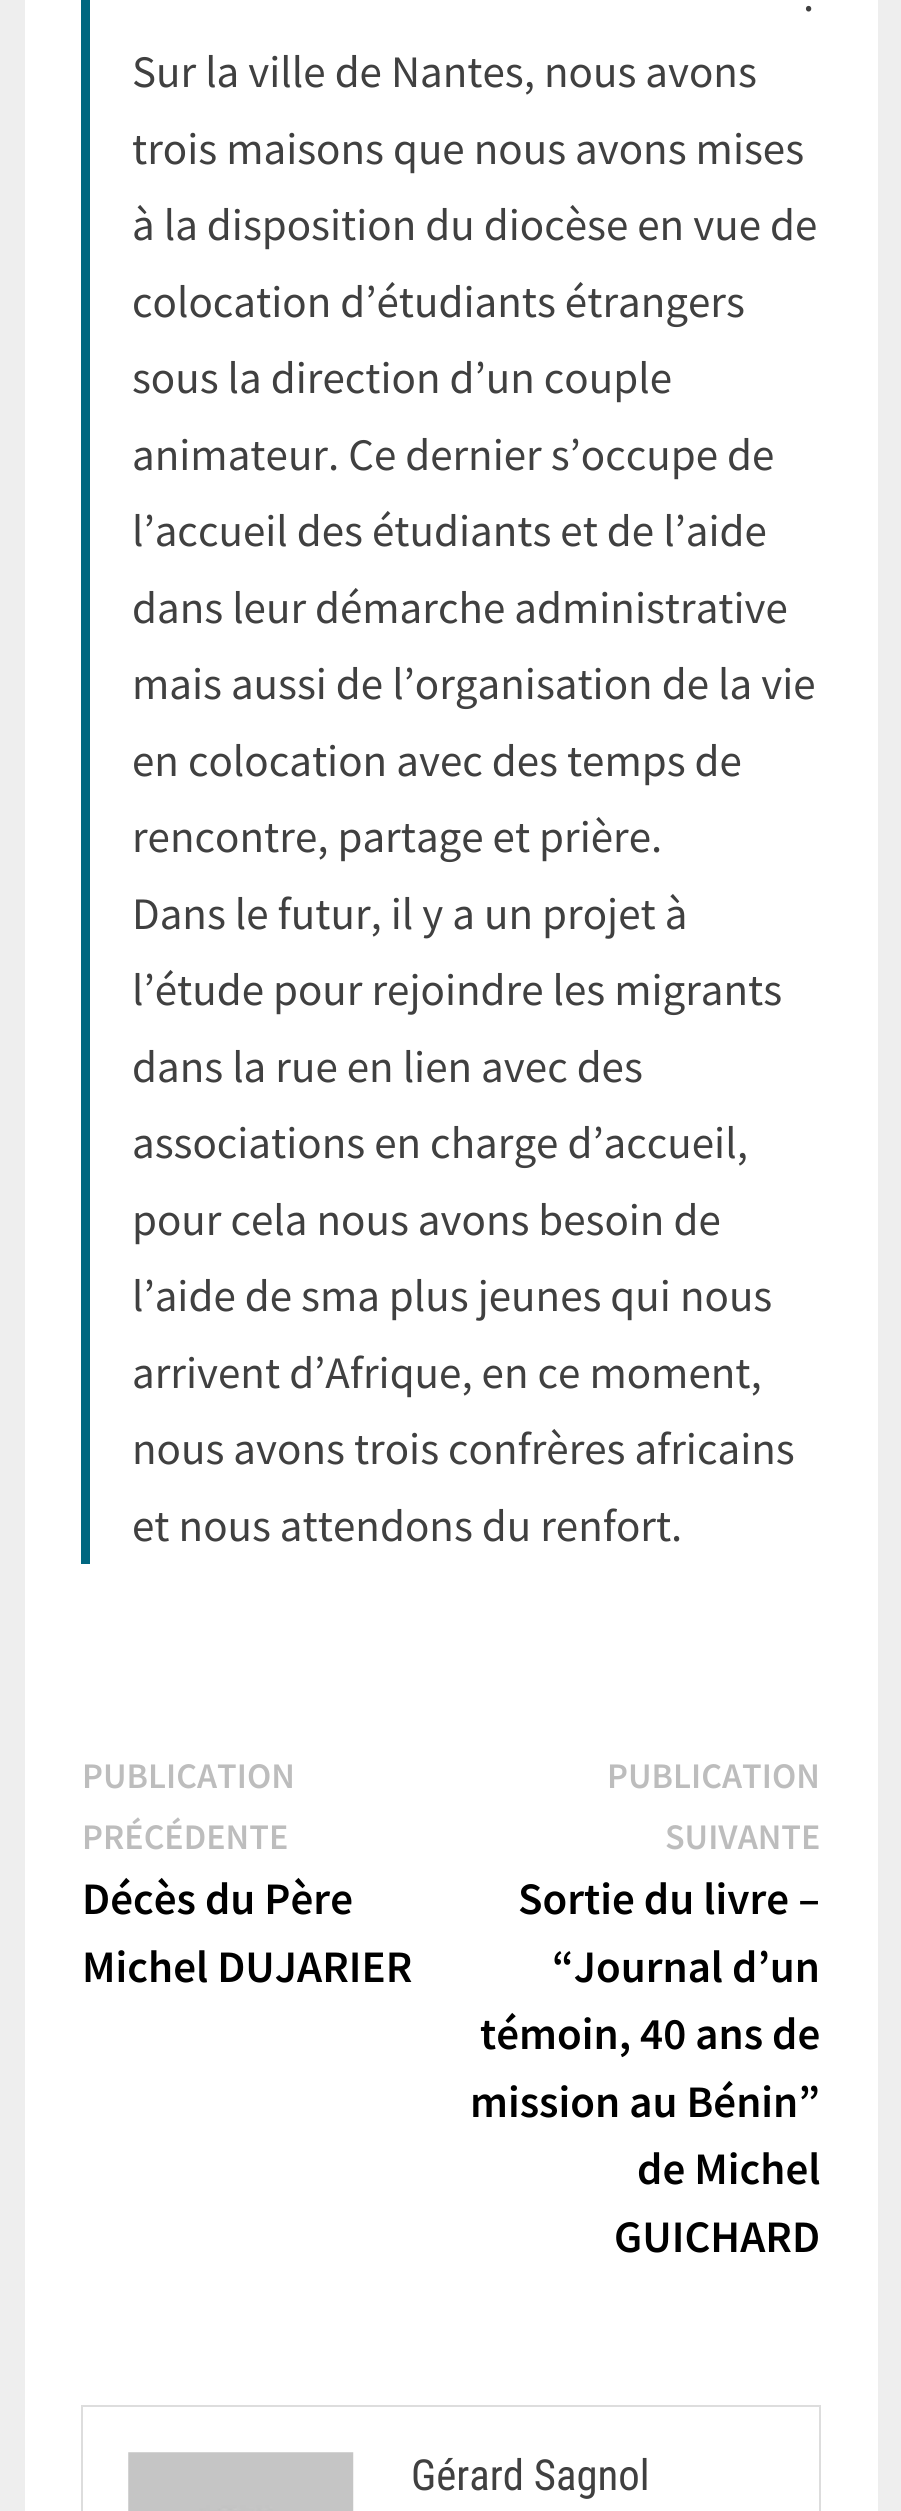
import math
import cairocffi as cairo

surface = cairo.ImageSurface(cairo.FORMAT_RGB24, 901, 2511)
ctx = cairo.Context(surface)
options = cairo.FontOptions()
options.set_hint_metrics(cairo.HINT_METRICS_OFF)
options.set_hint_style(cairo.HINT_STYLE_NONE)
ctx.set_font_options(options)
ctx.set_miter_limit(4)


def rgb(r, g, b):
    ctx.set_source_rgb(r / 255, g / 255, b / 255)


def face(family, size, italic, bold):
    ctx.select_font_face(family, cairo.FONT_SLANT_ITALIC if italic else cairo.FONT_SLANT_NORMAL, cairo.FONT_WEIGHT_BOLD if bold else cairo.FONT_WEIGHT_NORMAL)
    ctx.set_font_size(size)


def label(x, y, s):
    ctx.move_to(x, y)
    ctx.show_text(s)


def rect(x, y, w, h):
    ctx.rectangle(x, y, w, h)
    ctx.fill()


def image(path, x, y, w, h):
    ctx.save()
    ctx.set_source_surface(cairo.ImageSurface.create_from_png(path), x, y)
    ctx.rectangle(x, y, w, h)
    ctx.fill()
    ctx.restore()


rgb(238, 238, 238)
ctx.paint()
rgb(255, 255, 255)
rect(25, 0, 853, 2511)
rgb(0, 103, 128)
rect(81, 0, 9, 1564)
face('Source Sans Pro', 45, 0, 0)
rgb(64, 64, 64)
label(803, 11, '.')
label(132, 87, 'Sur la ville de Nantes, nous avons')
label(132, 164, 'trois maisons que nous avons mises')
label(132, 240, 'à la disposition du diocèse en vue de')
label(132, 317, 'colocation d’étudiants étrangers')
label(132, 393, 'sous la direction d’un couple')
label(132, 470, 'animateur. Ce dernier s’occupe de')
label(132, 546, 'l’accueil des étudiants et de l’aide')
label(132, 623, 'dans leur démarche administrative')
label(132, 699, 'mais aussi de l’organisation de la vie')
label(132, 776, 'en colocation avec des temps de')
label(132, 852, 'rencontre, partage et prière.')
label(132, 929, 'Dans le futur, il y a un projet à')
label(132, 1005, 'l’étude pour rejoindre les migrants')
label(132, 1082, 'dans la rue en lien avec des')
label(132, 1158, 'associations en charge d’accueil,')
label(132, 1235, 'pour cela nous avons besoin de')
label(132, 1311, 'l’aide de sma plus jeunes qui nous')
label(132, 1388, 'arrivent d’Afrique, en ce moment,')
label(132, 1464, 'nous avons trois confrères africains')
label(132, 1541, 'et nous attendons du renfort.')
face('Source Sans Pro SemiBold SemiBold', 36, 0, 0)
rgb(189, 189, 189)
label(82, 1788, 'PUBLICATION')
label(82, 1849, 'PRÉCÉDENTE')
face('Source Sans Pro SemiBold SemiBold', 45, 0, 0)
rgb(0, 0, 0)
label(82, 1914, 'Décès du Père')
label(82, 1982, 'Michel DUJARIER')
face('Source Sans Pro SemiBold SemiBold', 36, 0, 0)
rgb(189, 189, 189)
label(607, 1788, 'PUBLICATION')
label(665, 1849, 'SUIVANTE')
face('Source Sans Pro SemiBold SemiBold', 45, 0, 0)
rgb(0, 0, 0)
label(518, 1914, 'Sortie du livre –')
label(552, 1982, '“Journal d’un')
label(480, 2049, 'témoin, 40 ans de')
label(470, 2117, 'mission au Bénin”')
label(637, 2184, 'de Michel')
label(614, 2252, 'GUICHARD')
ctx.rectangle(82, 2406, 738, 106)
rgb(221, 221, 221)
ctx.stroke()
image('image0.png', 128, 2452, 226, 59)
face('Roboto Condensed', 42.75, 0, 0)
rgb(64, 64, 64)
label(411, 2490, 'Gérard Sagnol')
surface.write_to_png('render.png')
